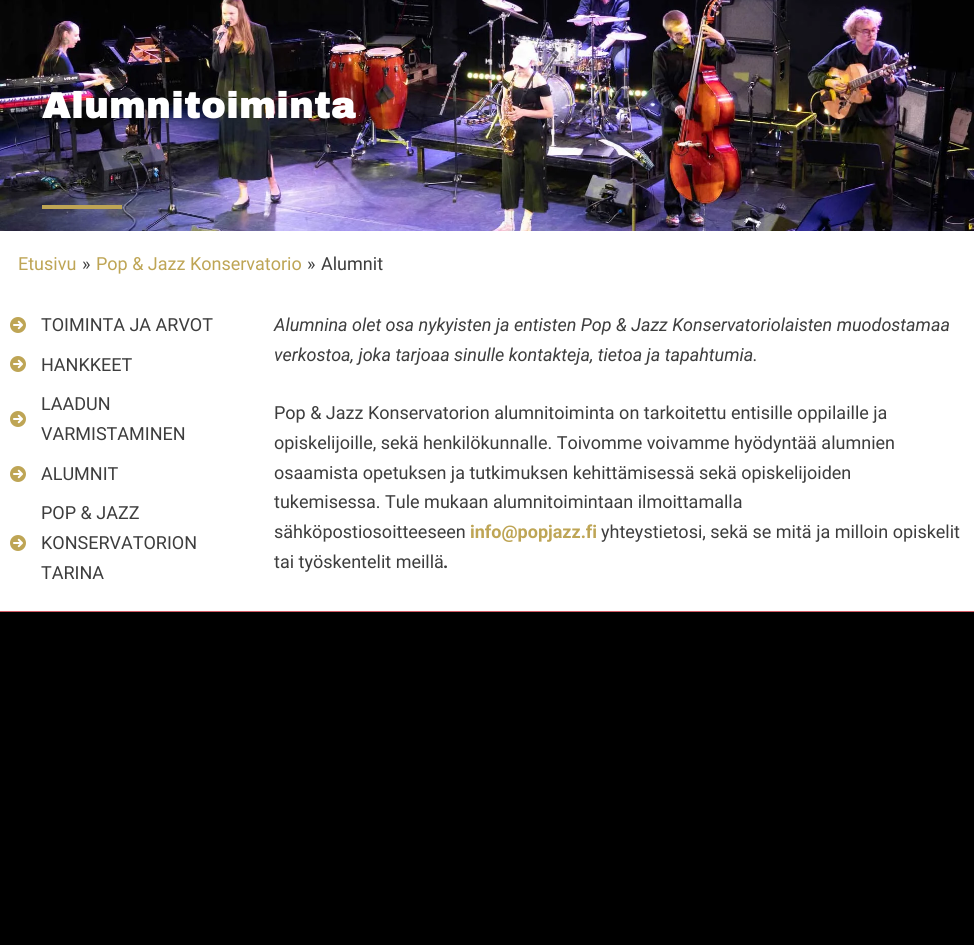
import math
import cairocffi as cairo

surface = cairo.ImageSurface(cairo.FORMAT_RGB24, 974, 945)
ctx = cairo.Context(surface)
options = cairo.FontOptions()
options.set_hint_metrics(cairo.HINT_METRICS_OFF)
options.set_hint_style(cairo.HINT_STYLE_NONE)
ctx.set_font_options(options)
ctx.set_miter_limit(4)


def rgb(r, g, b):
    ctx.set_source_rgb(r / 255, g / 255, b / 255)


def face(family, size, italic, bold):
    ctx.select_font_face(family, cairo.FONT_SLANT_ITALIC if italic else cairo.FONT_SLANT_NORMAL, cairo.FONT_WEIGHT_BOLD if bold else cairo.FONT_WEIGHT_NORMAL)
    ctx.set_font_size(size)


def label(x, y, s):
    ctx.move_to(x, y)
    ctx.show_text(s)


def tracked(x, y, s, letter, word):
    ctx.move_to(x, y)
    for ch in s:
        ctx.show_text(ch)
        ctx.rel_move_to(letter + word * (ch == ' '), 0)


def rect(x, y, w, h):
    ctx.rectangle(x, y, w, h)
    ctx.fill()


def image(path, x, y, w, h):
    ctx.save()
    ctx.set_source_surface(cairo.ImageSurface.create_from_png(path), x, y)
    ctx.rectangle(x, y, w, h)
    ctx.fill()
    ctx.restore()


rgb(255, 255, 255)
ctx.paint()
image('image0.png', 0, 0, 974, 231)
face('Archivo Black', 36, 0, 1)
rgb(255, 255, 255)
tracked(42, 118, 'Alumnitoiminta', 1, 0)
rgb(190, 165, 85)
rect(42, 205, 80, 4)
face('Roboto', 18, 0, 0)
label(18, 270, 'Etusivu')
rgb(61, 61, 61)
label(82, 270, '»')
rgb(190, 165, 85)
label(96, 270, 'Pop & Jazz Konservatorio')
rgb(61, 61, 61)
label(307, 270, '»')
label(321, 270, 'Alumnit')
image('image1.png', 10, 317, 16, 16)
label(41, 331, 'TOIMINTA JA ARVOT')
image('image1.png', 10, 356, 16, 16)
label(41, 371, 'HANKKEET')
image('image1.png', 10, 411, 16, 16)
label(41, 410, 'LAADUN')
label(41, 440, 'VARMISTAMINEN')
image('image1.png', 10, 466, 16, 16)
label(41, 480, 'ALUMNIT')
image('image1.png', 10, 535, 16, 16)
label(41, 519, 'POP & JAZZ')
label(41, 549, 'KONSERVATORION')
label(41, 579, 'TARINA')
face('Roboto', 18, 1, 0)
label(274, 331, 'Alumnina olet osa nykyisten ja entisten Pop & Jazz Konservatoriolaisten muodostamaa')
label(274, 361, 'verkostoa, joka tarjoaa sinulle kontakteja, tietoa ja tapahtumia.')
face('Roboto', 18, 0, 0)
label(274, 419, 'Pop & Jazz Konservatorion alumnitoiminta on tarkoitettu entisille oppilaille ja')
label(274, 449, 'opiskelijoille, sekä henkilökunnalle. Toivomme voivamme hyödyntää alumnien')
label(274, 479, 'osaamista opetuksen ja tutkimuksen kehittämisessä sekä opiskelijoiden')
label(274, 508, 'tukemisessa. Tule mukaan alumnitoimintaan ilmoittamalla')
label(274, 538, 'sähköpostiosoitteeseen')
face('Roboto', 18, 0, 1)
rgb(190, 165, 85)
label(470, 538, 'info@popjazz.fi')
face('Roboto', 18, 0, 0)
rgb(61, 61, 61)
label(601, 538, 'yhteystietosi, sekä se mitä ja milloin opiskelit')
label(274, 568, 'tai työskentelit meillä')
face('Roboto', 18, 0, 1)
label(443, 568, '.')
rgb(0, 0, 0)
rect(0, 612, 974, 333)
rgb(210, 90, 100)
rect(0, 611, 974, 1)
surface.write_to_png('render.png')
